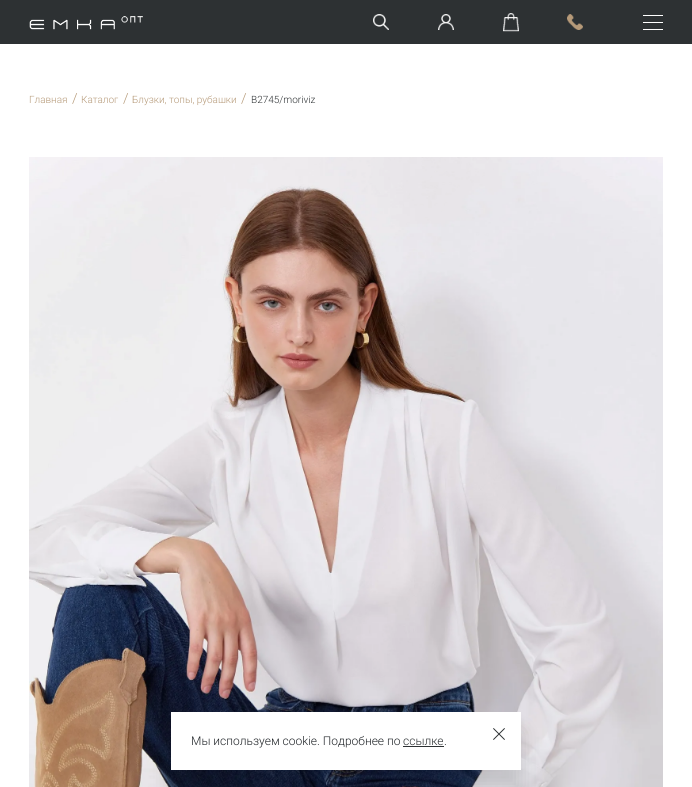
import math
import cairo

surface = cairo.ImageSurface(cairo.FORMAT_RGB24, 692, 787)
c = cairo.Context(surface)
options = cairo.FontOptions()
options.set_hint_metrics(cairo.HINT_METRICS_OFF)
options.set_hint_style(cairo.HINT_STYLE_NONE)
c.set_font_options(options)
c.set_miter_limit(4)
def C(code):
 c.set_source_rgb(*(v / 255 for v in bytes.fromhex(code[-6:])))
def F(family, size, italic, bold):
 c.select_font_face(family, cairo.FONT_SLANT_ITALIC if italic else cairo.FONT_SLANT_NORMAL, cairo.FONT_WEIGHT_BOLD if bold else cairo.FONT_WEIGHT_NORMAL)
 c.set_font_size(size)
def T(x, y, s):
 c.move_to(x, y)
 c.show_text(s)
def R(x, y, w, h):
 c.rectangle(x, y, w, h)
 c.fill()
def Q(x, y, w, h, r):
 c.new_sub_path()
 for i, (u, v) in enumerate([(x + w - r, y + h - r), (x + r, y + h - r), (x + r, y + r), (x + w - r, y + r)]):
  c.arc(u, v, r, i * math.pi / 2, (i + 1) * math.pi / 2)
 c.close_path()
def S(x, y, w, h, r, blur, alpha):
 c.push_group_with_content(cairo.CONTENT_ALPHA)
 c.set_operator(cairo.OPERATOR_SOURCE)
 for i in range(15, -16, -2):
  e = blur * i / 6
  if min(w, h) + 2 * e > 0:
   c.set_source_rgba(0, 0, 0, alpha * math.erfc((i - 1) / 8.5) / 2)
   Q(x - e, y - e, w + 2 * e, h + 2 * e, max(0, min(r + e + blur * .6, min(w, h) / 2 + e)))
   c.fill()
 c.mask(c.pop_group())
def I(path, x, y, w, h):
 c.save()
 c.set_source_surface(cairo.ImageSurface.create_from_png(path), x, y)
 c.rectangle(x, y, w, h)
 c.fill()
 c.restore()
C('ffffff')
c.paint()
C('2d3133')
R(0,0,692,44)
I('1.png',29,16,114,14)
I('2.png',373,14,16,16)
I('3.png',438,14,16,16)
I('4.png',503,13,16,19)
I('5.png',567,14,16,16)
C('ffffff')
R(643,15,20,1)
R(643,22,20,1)
R(643,29,20,1)
F('Roboto Light',10,0,0)
C('b69a79')
T(29,103,'Главная')
F('Roboto Light',14,0,0)
T(72,103,'/')
F('Roboto Light',10,0,0)
T(81,103,'Каталог')
F('Roboto Light',14,0,0)
T(123,103,'/')
F('Roboto Light',10,0,0)
T(132,103,'Блузки, топы, рубашки')
F('Roboto Light',14,0,0)
T(241,103,'/')
F('Roboto Light',10,0,0)
C('2d3133')
T(251,103,'B2745/moriviz')
I('6.png',29,157,634,630)
C('000000')
S(171,732,350,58,0,10,.16)
C('ffffff')
R(171,712,350,58)
F('Roboto Light',12,0,0)
C('212529')
T(191,745,'Мы используем cookie. Подробнее по')
C('2d3133')
T(403,745,'ссылке')
R(403,746,41,1)
C('212529')
T(444,745,'.')
I('7.png',493,728,12,12)
surface.write_to_png('o.png')
